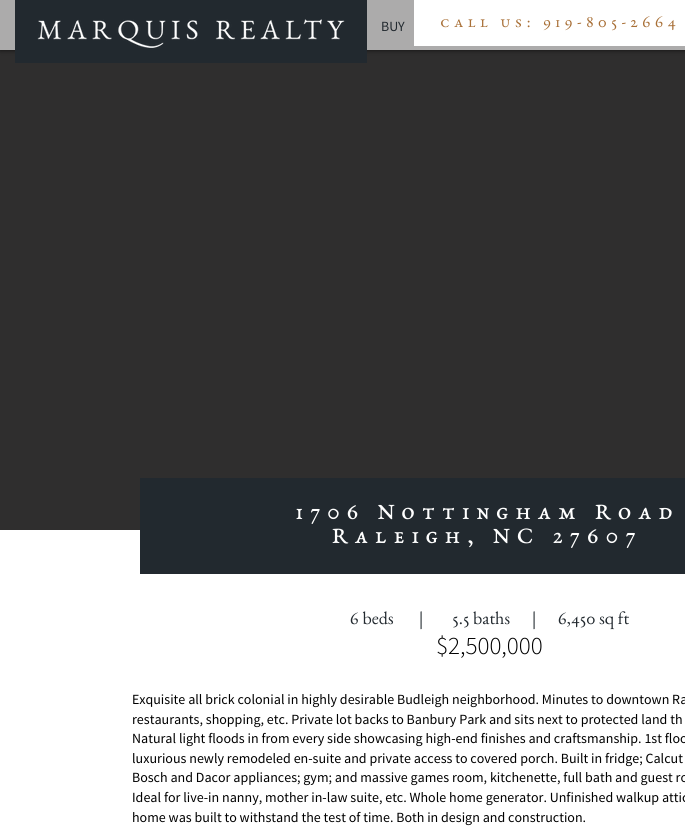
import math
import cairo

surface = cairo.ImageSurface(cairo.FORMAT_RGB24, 685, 839)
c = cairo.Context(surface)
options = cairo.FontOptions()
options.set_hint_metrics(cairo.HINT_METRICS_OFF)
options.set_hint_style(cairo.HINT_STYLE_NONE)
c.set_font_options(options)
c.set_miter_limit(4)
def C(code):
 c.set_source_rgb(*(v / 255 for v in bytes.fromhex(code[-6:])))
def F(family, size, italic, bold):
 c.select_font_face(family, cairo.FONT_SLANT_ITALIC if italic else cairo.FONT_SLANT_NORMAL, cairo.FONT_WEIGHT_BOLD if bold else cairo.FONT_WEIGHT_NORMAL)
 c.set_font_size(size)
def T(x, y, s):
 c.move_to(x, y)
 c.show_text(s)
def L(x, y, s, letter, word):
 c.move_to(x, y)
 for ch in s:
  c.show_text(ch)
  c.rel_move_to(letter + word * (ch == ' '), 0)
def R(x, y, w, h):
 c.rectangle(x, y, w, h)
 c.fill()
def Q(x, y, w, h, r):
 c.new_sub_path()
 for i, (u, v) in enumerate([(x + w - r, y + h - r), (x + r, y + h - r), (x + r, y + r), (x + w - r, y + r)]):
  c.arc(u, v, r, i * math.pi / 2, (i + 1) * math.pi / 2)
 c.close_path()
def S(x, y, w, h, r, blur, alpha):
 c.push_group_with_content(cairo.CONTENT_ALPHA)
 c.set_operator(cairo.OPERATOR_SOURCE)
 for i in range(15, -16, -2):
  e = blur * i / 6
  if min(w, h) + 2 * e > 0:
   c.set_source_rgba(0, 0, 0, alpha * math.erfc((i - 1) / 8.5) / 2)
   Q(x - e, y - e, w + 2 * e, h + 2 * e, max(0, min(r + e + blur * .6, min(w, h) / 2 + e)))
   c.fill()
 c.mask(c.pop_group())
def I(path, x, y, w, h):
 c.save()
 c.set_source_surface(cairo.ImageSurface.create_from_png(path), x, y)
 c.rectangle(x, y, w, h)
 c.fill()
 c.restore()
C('ffffff')
c.paint()
C('2f2e2e')
R(0,50,685,480)
C('000000')
S(0,0,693,50,0,2.5,.7)
C('acabab')
R(0,0,685,50)
C('22292f')
R(15,0,352,63)
I('1.png',37,19,308,29)
F('Source Sans Pro',14,0,0)
T(381,31,'BUY')
C('ffffff')
R(414,0,271,46)
F('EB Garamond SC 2',17,0,0)
C('a86f36')
L(440,27,'call us: 919-805-2664',4.4,0)
C('22292f')
R(140,478,545,96)
F('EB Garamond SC',24,0,0)
C('ffffff')
L(296,519,'1706 Nottingham Road',7.25,0)
L(332,543,'Raleigh, NC 27607',7.25,0)
F('EB Garamond',18,0,0)
C('22292f')
T(350,624,'6 beds       |        5.5 baths      |      6,450 sq ft')
F('Source Sans Pro Light',25,0,0)
C('000000')
T(436,654,'$2,500,000')
F('Source Sans Pro',14,0,0)
T(132,704,'Exquisite all brick colonial in highly desirable Budleigh neighborhood. Minutes to downtown Ra')
T(132,724,'restaurants, shopping, etc. Private lot backs to Banbury Park and sits next to protected land th')
T(132,743,'Natural light floods in from every side showcasing high-end finishes and craftsmanship. 1st floo')
T(132,763,'luxurious newly remodeled en-suite and private access to covered porch. Built in fridge; Calcut')
T(132,782,'Bosch and Dacor appliances; gym; and massive games room, kitchenette, full bath and guest ro')
T(132,802,'Ideal for live-in nanny, mother in-law suite, etc. Whole home generator. Unfinished walkup attic')
T(132,822,'home was built to withstand the test of time. Both in design and construction.')
surface.write_to_png('o.png')
